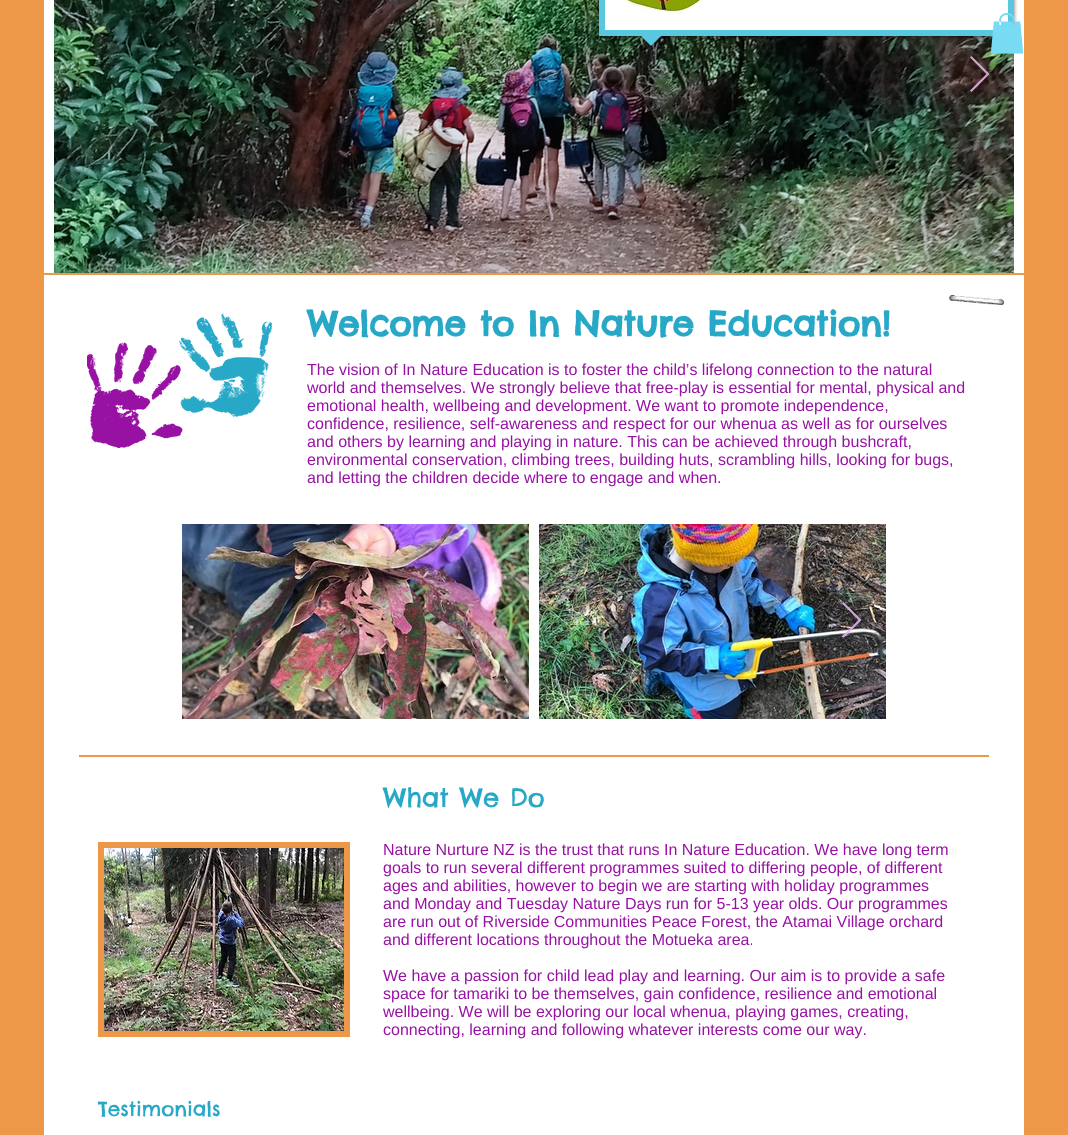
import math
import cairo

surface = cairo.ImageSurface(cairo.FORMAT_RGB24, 1068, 1135)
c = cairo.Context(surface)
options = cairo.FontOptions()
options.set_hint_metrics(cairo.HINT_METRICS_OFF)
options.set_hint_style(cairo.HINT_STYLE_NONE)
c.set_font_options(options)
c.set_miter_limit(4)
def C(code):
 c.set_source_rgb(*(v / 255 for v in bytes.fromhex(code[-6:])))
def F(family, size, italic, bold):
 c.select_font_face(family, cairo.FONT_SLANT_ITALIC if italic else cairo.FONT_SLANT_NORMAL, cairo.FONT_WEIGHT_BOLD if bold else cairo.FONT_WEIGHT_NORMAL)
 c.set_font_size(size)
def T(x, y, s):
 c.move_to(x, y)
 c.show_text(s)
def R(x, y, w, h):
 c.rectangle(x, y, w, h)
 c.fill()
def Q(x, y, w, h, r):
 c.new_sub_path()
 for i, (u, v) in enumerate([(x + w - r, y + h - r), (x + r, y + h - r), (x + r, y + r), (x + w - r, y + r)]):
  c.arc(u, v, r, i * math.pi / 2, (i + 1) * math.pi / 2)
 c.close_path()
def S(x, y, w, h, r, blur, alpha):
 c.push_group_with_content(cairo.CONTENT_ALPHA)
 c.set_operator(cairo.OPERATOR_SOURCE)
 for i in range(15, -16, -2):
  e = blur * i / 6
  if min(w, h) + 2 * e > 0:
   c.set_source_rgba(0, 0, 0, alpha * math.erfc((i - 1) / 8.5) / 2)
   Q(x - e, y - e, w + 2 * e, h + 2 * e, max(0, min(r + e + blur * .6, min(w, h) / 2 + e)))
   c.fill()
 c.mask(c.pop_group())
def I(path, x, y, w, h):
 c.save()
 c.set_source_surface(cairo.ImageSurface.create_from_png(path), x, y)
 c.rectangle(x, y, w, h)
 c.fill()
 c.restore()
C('ed9749')
c.paint()
C('ffffff')
R(44,0,980,273)
I('2.png',54,0,960,273)
C('000000')
S(599,-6,415,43,0,2,.6)
C('ffffff')
c.rectangle(602,-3,409,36)
c.fill_preserve()
C('59c7e0')
c.set_line_width(6)
c.stroke()
I('1.png',625,0,78,14)
c.new_path()
c.move_to(641,36)
c.line_to(661,36)
c.line_to(651,46)
c.close_path()
c.fill()
c.set_source_rgba(0.89,0.706,0.91,0.9)
c.new_path()
c.move_to(970,57.5)
c.line_to(971.5,56)
c.line_to(989.5,74)
c.line_to(971.5,92)
c.line_to(970,90.5)
c.line_to(986.5,74)
c.close_path()
c.fill()
I('3.png',990,13,34,41)
C('ffffff')
R(44,275,980,860)
I('4.png',949,295,55,10)
I('5.png',87,313,185,135)
F('Chelsea Market',34,0,1)
C('27a8c7')
T(307,336,'Welcome to In Nature Education!')
F('Liberation Sans',16,0,0)
C('9711a3')
T(307,375,'The vision of In Nature Education is to foster the child’s lifelong connection to the natural')
T(307,393,'world and themselves. We strongly believe that free-play is essential for mental, physical and')
T(307,411,'emotional health, wellbeing and development. We want to promote independence,')
T(307,429,'confidence, resilience, self-awareness and respect for our whenua as well as for ourselves')
T(307,447,'and others by learning and playing in nature. This can be achieved through bushcraft,')
T(307,465,'environmental conservation, climbing trees, building huts, scrambling hills, looking for bugs,')
T(307,483,'and letting the children decide where to engage and when.')
I('6.png',182,524,347,195)
I('7.png',539,524,347,195)
c.set_source_rgba(0.89,0.706,0.91,0.9)
c.new_path()
c.move_to(842,603.5)
c.line_to(843.5,602)
c.line_to(861.5,620)
c.line_to(843.5,638)
c.line_to(842,636.5)
c.line_to(858.5,620)
c.close_path()
c.fill()
C('ed9749')
R(79,755,910,2)
F('Chelsea Market',26,0,0)
C('27a8c7')
T(383,807,'What We Do')
C('ed9749')
R(98,842,252,195)
I('8.png',104,848,240,183)
F('Liberation Sans',16,0,0)
C('9711a3')
T(383,855,'Nature Nurture NZ is the trust that runs In Nature Education. We have long term')
T(383,873,'goals to run several different programmes suited to differing people, of different')
T(383,891,'ages and abilities, however to begin we are starting with holiday programmes')
T(383,909,'and Monday and Tuesday Nature Days run for 5-13 year olds. Our programmes')
T(383,927,'are run out of Riverside Communities Peace Forest, the Atamai Village orchard')
T(383,945,'and different locations throughout the Motueka area.')
T(383,981,'We have a passion for child lead play and learning. Our aim is to provide a safe')
T(383,999,'space for tamariki to be themselves, gain confidence, resilience and emotional')
T(383,1017,'wellbeing. We will be exploring our local whenua, playing games, creating,')
T(383,1035,'connecting, learning and following whatever interests come our way.')
F('Chelsea Market',20,0,0)
C('27a8c7')
T(98,1116,'Testimonials')
surface.write_to_png('o.png')
